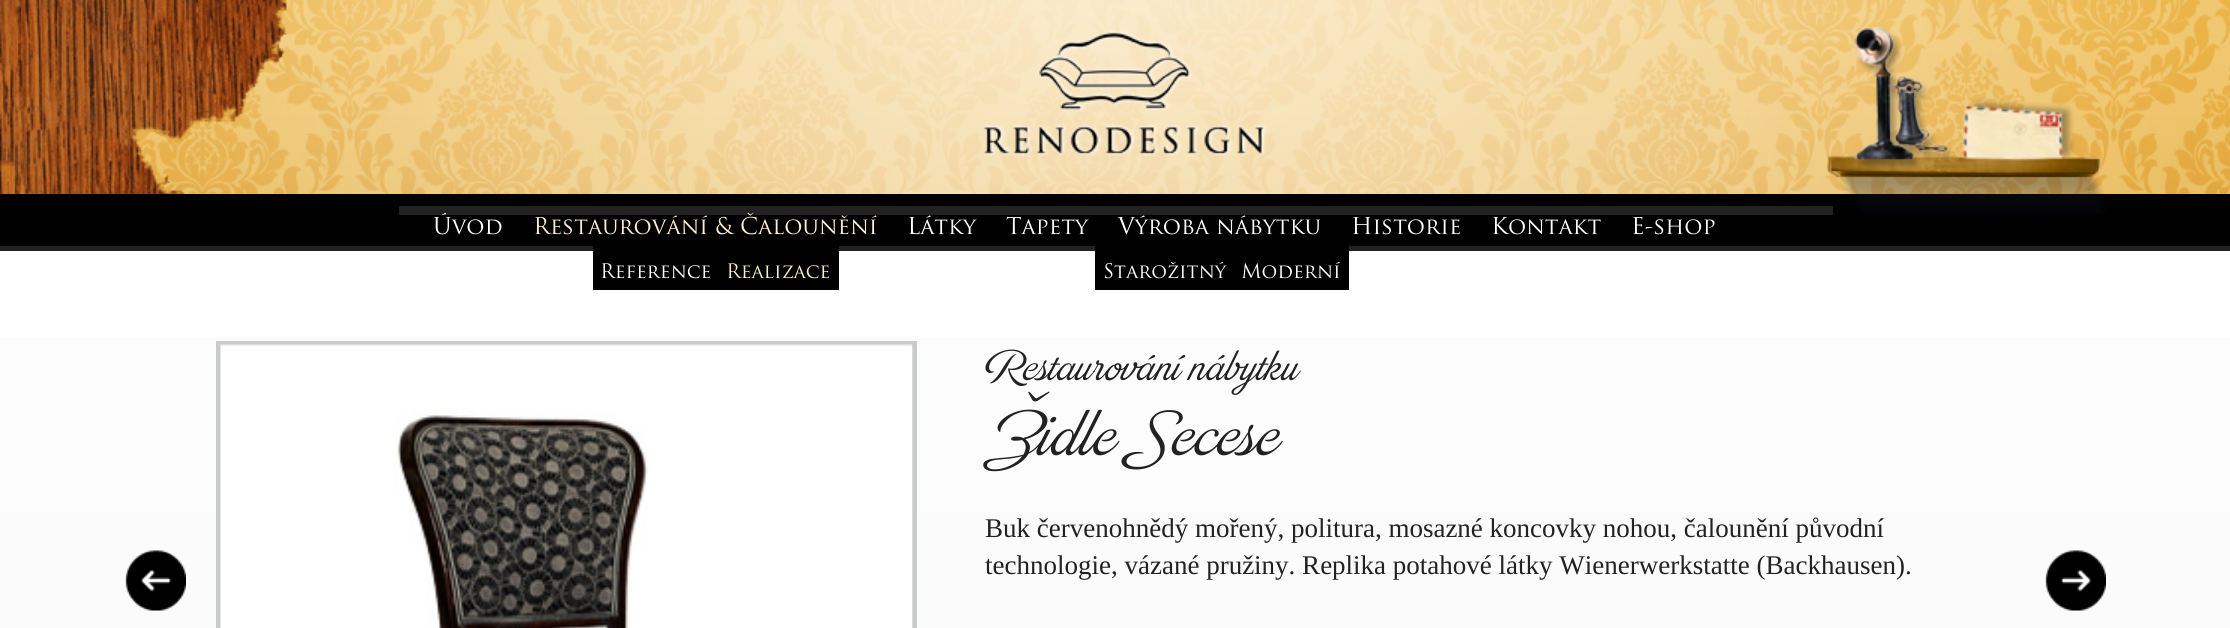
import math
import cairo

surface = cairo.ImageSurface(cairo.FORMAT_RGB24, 2230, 628)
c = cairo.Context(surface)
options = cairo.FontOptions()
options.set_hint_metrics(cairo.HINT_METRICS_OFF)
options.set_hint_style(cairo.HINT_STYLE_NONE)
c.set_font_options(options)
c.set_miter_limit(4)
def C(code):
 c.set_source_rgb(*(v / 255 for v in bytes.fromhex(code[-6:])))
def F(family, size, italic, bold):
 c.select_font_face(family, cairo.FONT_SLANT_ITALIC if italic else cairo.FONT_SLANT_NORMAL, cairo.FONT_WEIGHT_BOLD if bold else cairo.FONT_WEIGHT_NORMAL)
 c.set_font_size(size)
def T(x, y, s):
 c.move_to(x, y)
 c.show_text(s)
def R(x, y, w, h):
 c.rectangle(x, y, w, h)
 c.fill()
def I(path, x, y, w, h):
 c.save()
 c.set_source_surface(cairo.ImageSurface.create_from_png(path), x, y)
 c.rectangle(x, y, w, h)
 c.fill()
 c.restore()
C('ffffff')
c.paint()
I('1.png',136,0,2094,194)
I('3.png',0,0,2177,194)
C('000000')
R(0,194,2230,52)
I('2.png',1826,26,281,187)
C('222222')
R(0,246,2230,5)
I('4.png',983,30,284,126)
R(399,206,1434,9)
F('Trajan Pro',22.5,0,0)
C('ffffff')
T(433,234,'Úvod')
C('fff0cd')
T(533,234,'Restaurování & Čalounění')
C('000000')
R(593,246,246,44)
F('Trajan Pro',19.5,0,0)
C('ffffff')
T(600,278,'Reference')
C('fff0cd')
T(726,278,'Realizace')
F('Trajan Pro',22.5,0,0)
C('ffffff')
T(907,234,'Látky')
T(1006,234,'Tapety')
T(1118,234,'Výroba nábytku')
C('000000')
R(1095,246,254,44)
F('Trajan Pro',19.5,0,0)
C('ffffff')
T(1103,278,'Starožitný')
T(1241,278,'Moderní')
F('Trajan Pro',22.5,0,0)
T(1351,234,'Historie')
T(1491,234,'Kontakt')
T(1631,234,'E-shop')
gradient = cairo.LinearGradient(1115,250,1115,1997)
gradient.add_color_stop_rgba(0,0.992,0.992,0.992,1)
gradient.add_color_stop_rgba(.5,0.973,0.973,0.973,1)
gradient.add_color_stop_rgba(.78,0.922,0.925,0.925,1)
gradient.add_color_stop_rgba(1,0.922,0.925,0.925,1)
c.set_source(gradient)
R(0,337,2230,291)
I('5.png',125,550,61,61)
c.rectangle(218.5,343.5,696,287)
C('c9caca')
c.set_line_width(5)
c.stroke()
I('6.png',220,344,693,284)
F('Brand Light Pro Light',45,0,0)
C('222222')
T(985,380,'Restaurování nábytku')
F('Brand Light Pro Light',69,0,0)
T(985,455,'Židle Secese')
F('Liberation Serif',27,0,0)
T(985,537,'Buk červenohnědý mořený, politura, mosazné koncovky nohou, čalounění původní')
T(985,574,'technologie, vázané pružiny. Replika potahové látky Wienerwerkstatte (Backhausen).')
I('7.png',2045,550,61,61)
surface.write_to_png('o.png')
